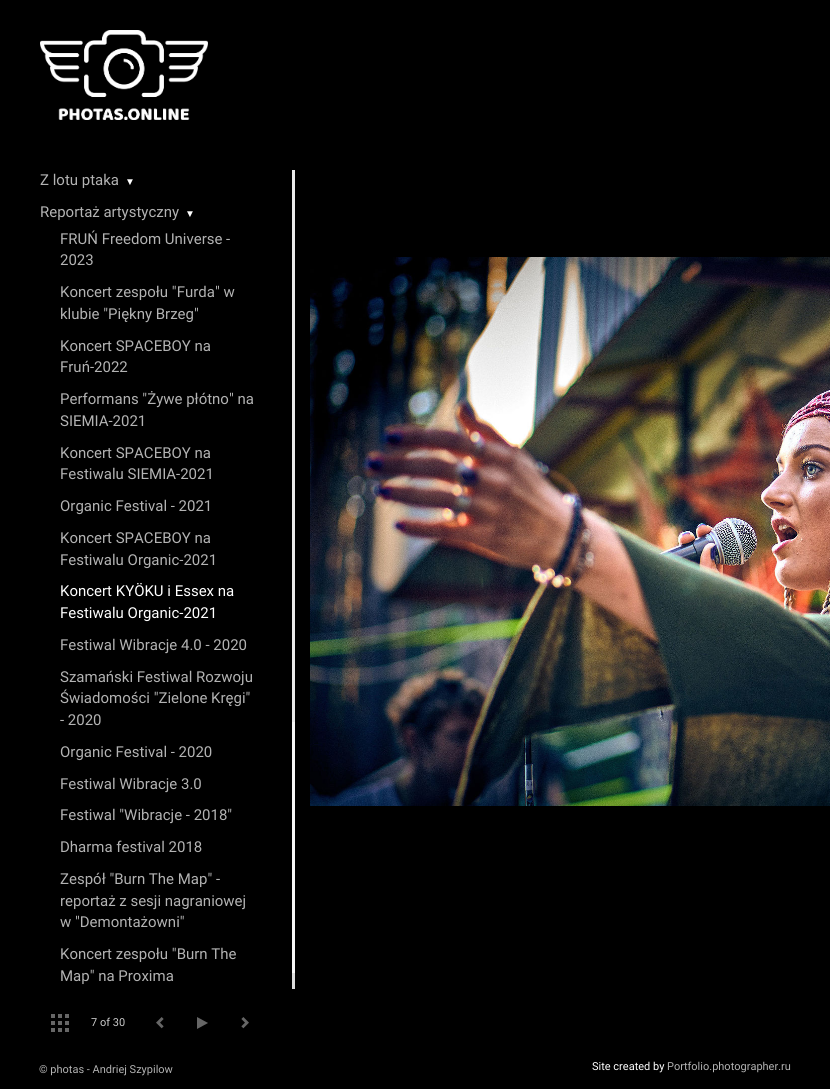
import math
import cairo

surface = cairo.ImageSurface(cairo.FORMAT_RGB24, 830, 1089)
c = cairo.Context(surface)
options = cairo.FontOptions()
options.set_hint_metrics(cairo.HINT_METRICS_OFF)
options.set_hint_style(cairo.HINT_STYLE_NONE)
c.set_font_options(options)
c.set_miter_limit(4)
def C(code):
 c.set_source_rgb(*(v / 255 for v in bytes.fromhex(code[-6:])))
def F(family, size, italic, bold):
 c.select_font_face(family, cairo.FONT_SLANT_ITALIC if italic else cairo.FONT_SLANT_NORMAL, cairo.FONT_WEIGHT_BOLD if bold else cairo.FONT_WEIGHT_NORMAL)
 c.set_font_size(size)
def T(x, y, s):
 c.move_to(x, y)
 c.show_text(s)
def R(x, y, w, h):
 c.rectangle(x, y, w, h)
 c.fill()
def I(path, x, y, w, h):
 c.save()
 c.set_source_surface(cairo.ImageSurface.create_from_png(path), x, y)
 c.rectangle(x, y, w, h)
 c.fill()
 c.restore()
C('000000')
c.paint()
I('1.png',40,30,168,90)
F('Roboto',15,0,0)
C('b3b3b3')
T(40,185,'Z lotu ptaka')
F('Liberation Serif',10,0,0)
C('ffffff')
T(125,185,'▼')
F('Roboto',15,0,0)
C('b3b3b3')
T(40,217,'Reportaż artystyczny')
F('Liberation Serif',10,0,0)
C('ffffff')
T(185,217,'▼')
F('Roboto',15,0,0)
C('b3b3b3')
T(60,244,'FRUŃ Freedom Universe -')
T(60,265,'2023')
T(60,297,'Koncert zespołu "Furda" w')
T(60,319,'klubie "Piękny Brzeg"')
T(60,351,'Koncert SPACEBOY na')
T(60,372,'Fruń-2022')
T(60,404,'Performans "Żywe płótno" na')
T(60,426,'SIEMIA-2021')
T(60,458,'Koncert SPACEBOY na')
T(60,479,'Festiwalu SIEMIA-2021')
T(60,511,'Organic Festival - 2021')
T(60,543,'Koncert SPACEBOY na')
T(60,565,'Festiwalu Organic-2021')
C('ffffff')
T(60,596,'Koncert KYÖKU i Essex na')
T(60,618,'Festiwalu Organic-2021')
C('b3b3b3')
T(60,650,'Festiwal Wibracje 4.0 - 2020')
T(60,682,'Szamański Festiwal Rozwoju')
T(60,703,'Świadomości "Zielone Kręgi"')
T(60,725,'- 2020')
T(60,757,'Organic Festival - 2020')
T(60,789,'Festiwal Wibracje 3.0')
T(60,820,'Festiwal "Wibracje - 2018"')
T(60,852,'Dharma festival 2018')
T(60,884,'Zespół "Burn The Map" -')
T(60,906,'reportaż z sesji nagraniowej')
T(60,927,'w "Demontażowni"')
T(60,959,'Koncert zespołu "Burn The')
T(60,981,'Map" na Proxima')
C('ebebeb')
R(292,170,3,552)
C('f8f8f8')
R(292,722,3,251)
C('dddddd')
R(292,973,3,16)
I('2.png',51,1014,18,18)
F('Roboto',11,0,0)
C('cccccc')
T(91,1026,'7 of 30')
I('3.png',156,1017,8,12)
C('666666')
c.new_path()
c.move_to(208,1023)
c.line_to(197,1029)
c.line_to(197,1017)
c.close_path()
c.fill()
I('4.png',241,1017,8,12)
I('5.png',310,257,520,549)
C('b3b3b3')
T(39,1073,'© photas - Andriej Szypilow')
C('ffffff')
T(592,1070,'Site created by')
C('b3b3b3')
T(667,1070,'Portfolio.photographer.ru')
surface.write_to_png('o.png')
